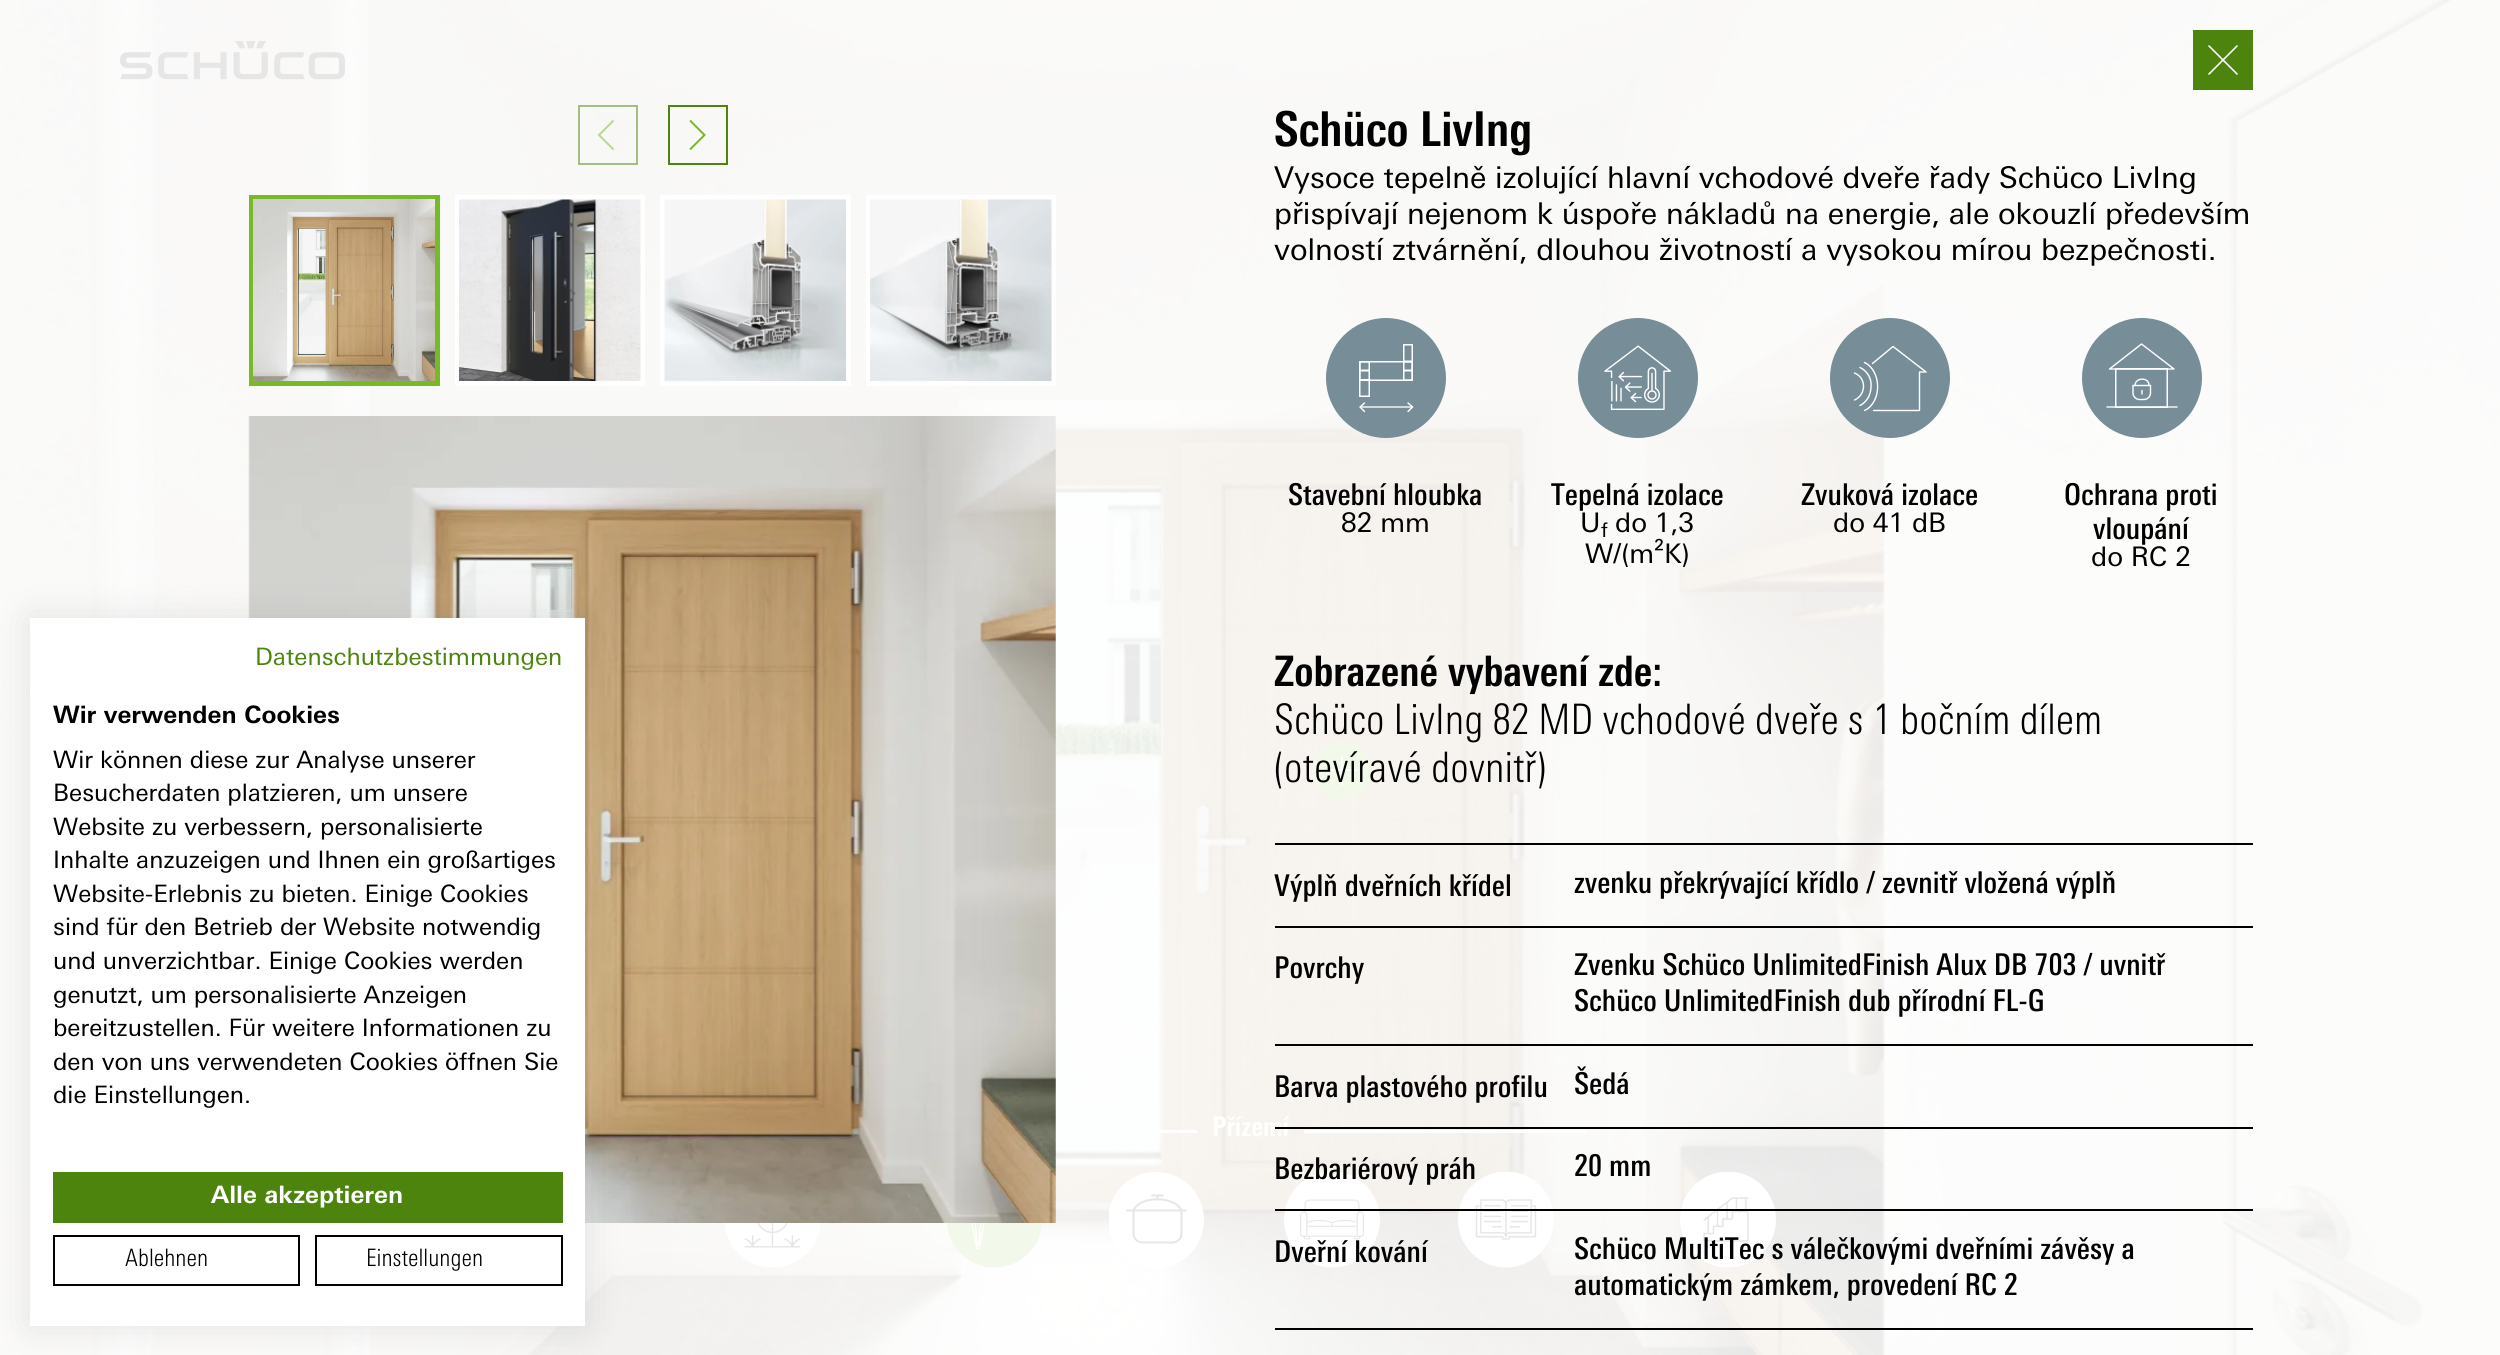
import math
import cairo

surface = cairo.ImageSurface(cairo.FORMAT_RGB24, 2500, 1355)
c = cairo.Context(surface)
options = cairo.FontOptions()
options.set_hint_metrics(cairo.HINT_METRICS_OFF)
options.set_hint_style(cairo.HINT_STYLE_NONE)
c.set_font_options(options)
c.set_miter_limit(4)
def C(code):
 c.set_source_rgb(*(v / 255 for v in bytes.fromhex(code[-6:])))
def F(family, size, italic, bold):
 c.select_font_face(family, cairo.FONT_SLANT_ITALIC if italic else cairo.FONT_SLANT_NORMAL, cairo.FONT_WEIGHT_BOLD if bold else cairo.FONT_WEIGHT_NORMAL)
 c.set_font_size(size)
def T(x, y, s):
 c.move_to(x, y)
 c.show_text(s)
def R(x, y, w, h):
 c.rectangle(x, y, w, h)
 c.fill()
def Q(x, y, w, h, r):
 c.new_sub_path()
 for i, (u, v) in enumerate([(x + w - r, y + h - r), (x + r, y + h - r), (x + r, y + r), (x + w - r, y + r)]):
  c.arc(u, v, r, i * math.pi / 2, (i + 1) * math.pi / 2)
 c.close_path()
def S(x, y, w, h, r, blur, alpha):
 c.push_group_with_content(cairo.CONTENT_ALPHA)
 c.set_operator(cairo.OPERATOR_SOURCE)
 for i in range(15, -16, -2):
  e = blur * i / 6
  if min(w, h) + 2 * e > 0:
   c.set_source_rgba(0, 0, 0, alpha * math.erfc((i - 1) / 8.5) / 2)
   Q(x - e, y - e, w + 2 * e, h + 2 * e, max(0, min(r + e + blur * .6, min(w, h) / 2 + e)))
   c.fill()
 c.mask(c.pop_group())
def I(path, x, y, w, h):
 c.save()
 c.set_source_surface(cairo.ImageSurface.create_from_png(path), x, y)
 c.rectangle(x, y, w, h)
 c.fill()
 c.restore()
C('ffffff')
c.paint()
I('2.png',0,0,2500,1355)
I('12.png',248,416,808,807)
C('000000')
S(30,618,555,708,0,18,.1)
C('ffffff')
R(30,618,555,708)
F('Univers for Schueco',24,0,0)
C('4c840d')
T(255,665,'Datenschutzbestimmungen')
F('Univers for Schueco',24,0,1)
C('000000')
T(53,723,'Wir verwenden Cookies')
F('Univers for Schueco',24,0,0)
T(53,768,'Wir können diese zur Analyse unserer')
T(53,801,'Besucherdaten platzieren, um unsere')
T(53,835,'Website zu verbessern, personalisierte')
T(53,868,'Inhalte anzuzeigen und Ihnen ein großartiges')
T(53,902,'Website-Erlebnis zu bieten. Einige Cookies')
T(53,935,'sind für den Betrieb der Website notwendig')
T(53,969,'und unverzichtbar. Einige Cookies werden')
T(53,1003,'genutzt, um personalisierte Anzeigen')
T(53,1036,'bereitzustellen. Für weitere Informationen zu')
T(53,1070,'den von uns verwendeten Cookies öffnen Sie')
T(53,1103,'die Einstellungen.')
C('4c840d')
R(53,1172,510,51)
F('Univers for Schueco',24,0,1)
C('ffffff')
T(211,1203,'Alle akzeptieren')
c.rectangle(54,1236,245,49)
C('000000')
c.stroke()
F('Univers for Schueco Light',24,0,0)
T(125,1266,'Ablehnen')
c.rectangle(316,1236,246,49)
c.stroke()
T(366,1266,'Einstellungen')
I('1.png',120,41,225,39)
C('f2f8ea')
c.arc(1341.5,769.5,28.5,0,2 * math.pi)
c.fill()
c.arc(1342,770,29,0,2 * math.pi)
c.fill()
C('ffffff')
R(1328,769,29,2)
R(1341,756,2,29)
R(1159,1130,38,3)
F('Univers for Schueco SemiBold',27,0,0)
T(1212,1136,'Přízemí')
R(1304,1130,283,3)
I('3.png',947,1223,96,45)
c.save()
c.rectangle(1109,1172,96,96)
c.clip()
c.arc(1156,1220,48,0,2 * math.pi)
c.fill()
c.restore()
c.new_path()
c.move_to(1133.5,1210.5)
c.line_to(1181.5,1210.5)
c.line_to(1181.5,1233.5)
c.curve_to(1181.5,1238.5,1177.5,1242.5,1172.5,1242.5)
c.line_to(1142.5,1242.5)
c.curve_to(1137.5,1242.5,1133.5,1238.5,1133.5,1233.5)
c.close_path()
c.move_to(1126.5,1210.5)
c.line_to(1186.5,1210.5)
c.move_to(1133.5,1210.5)
c.curve_to(1139.5,1195.5,1175,1195.5,1181.5,1210.5)
c.move_to(1157.5,1196)
c.line_to(1157.5,1200)
c.move_to(1163.5,1195.5)
c.line_to(1151.5,1195.5)
C('e6e6e6')
c.stroke()
I('4.png',1284,1172,96,96)
I('5.png',1458,1172,96,96)
I('6.png',725,1223,96,45)
I('7.png',1680,1172,96,96)
C('4c840d')
R(2193,30,60,60)
c.new_path()
c.move_to(2209,74)
c.line_to(2237,46)
c.move_to(2209,46)
c.line_to(2237,74)
C('ffffff')
c.set_line_width(1.6)
c.set_line_cap(cairo.LINE_CAP_ROUND)
c.stroke()
c.rectangle(579,106,58,58)
C('a2be82')
c.set_line_width(2)
c.set_line_cap(cairo.LINE_CAP_BUTT)
c.stroke()
c.new_path()
c.move_to(613.5,120.5)
c.line_to(599,135)
c.line_to(613.5,149.5)
C('b8d88f')
c.stroke()
c.rectangle(669,106,58,58)
C('4c840d')
c.stroke()
c.new_path()
c.move_to(690,149.5)
c.line_to(704.5,135)
c.line_to(690,120.5)
C('78b928')
c.stroke()
c.rectangle(251.5,197.5,186,186)
c.set_line_width(5)
c.stroke()
I('8.png',253,199,182,182)
C('ffffff')
R(455,195,190,191)
I('9.png',459,199,182,182)
R(660,195,191,191)
I('10.png',664,199,182,182)
R(866,195,190,191)
I('11.png',870,199,182,182)
F('Univers for Schueco SemiBold',48,0,0)
C('000000')
T(1274,146,'Schüco LivIng')
F('Univers for Schueco',30,0,0)
T(1274,188,'Vysoce tepelně izolující hlavní vchodové dveře řady Schüco LivIng')
T(1274,224,'přispívají nejenom k úspoře nákladů na energie, ale okouzlí především')
T(1274,260,'volností ztvárnění, dlouhou životností a vysokou mírou bezpečnosti.')
C('778d98')
c.new_path()
c.arc(1386,378,60,0,2 * math.pi)
c.fill()
c.rectangle(1359.75,361.75,52.5,18.5)
C('ffffff')
c.set_line_width(1.5)
c.stroke()
c.rectangle(1403.75,370.75,8.5,9.5)
c.stroke()
c.rectangle(1403.75,361.75,8.5,8.5)
c.stroke()
c.rectangle(1403.75,344.75,8.5,16.5)
c.stroke()
c.rectangle(1359.75,379.75,9.5,16.5)
c.stroke()
c.rectangle(1359.75,370.75,9.5,9.5)
c.stroke()
c.rectangle(1359.75,361.75,9.5,8.5)
c.stroke()
c.new_path()
c.move_to(1364.5,403)
c.line_to(1360,407)
c.line_to(1364.5,411.5)
c.set_line_width(1.4)
c.set_line_cap(cairo.LINE_CAP_ROUND)
c.set_line_join(cairo.LINE_JOIN_ROUND)
c.stroke()
c.new_path()
c.move_to(1360.5,407)
c.line_to(1412.5,407)
c.set_line_join(cairo.LINE_JOIN_MITER)
c.stroke()
c.new_path()
c.move_to(1408,403)
c.line_to(1412.5,407)
c.line_to(1408,411.5)
c.set_line_join(cairo.LINE_JOIN_ROUND)
c.stroke()
F('Univers for Schueco Medium',30,0,0)
C('000000')
T(1288,505,'Stavební hloubka')
F('Univers for Schueco',27,0,0)
T(1341,532,'82 mm')
I('13.png',1578,318,120,120)
F('Univers for Schueco Medium',30,0,0)
T(1551,505,'Tepelná izolace')
F('Univers for Schueco',27,0,0)
T(1580,532,'U')
F('Univers for Schueco',20,0,0)
T(1601,537,'f')
F('Univers for Schueco',27,0,0)
T(1615,532,'do 1,3')
T(1585,563,'W/(m²K)')
C('778d98')
c.new_path()
c.arc(1890,378,60,0,2 * math.pi)
c.fill()
c.new_path()
c.move_to(1854.5,373)
c.curve_to(1867,378,1866,395,1854.5,400)
c.move_to(1860,367.5)
c.curve_to(1867.5,371,1872,379,1871,387)
c.curve_to(1870.5,401,1860,405.5,1860,405.5)
c.move_to(1864.5,362.5)
c.curve_to(1882,371,1882,402.5,1864.5,410.5)
C('ffffff')
c.stroke()
c.new_path()
c.move_to(1872.5,363.5)
c.line_to(1893,346.5)
c.line_to(1926,372)
c.line_to(1919.5,372)
c.line_to(1919.5,410.5)
c.line_to(1873.5,410.5)
c.stroke()
F('Univers for Schueco Medium',30,0,0)
C('000000')
T(1801,505,'Zvuková izolace')
F('Univers for Schueco',27,0,0)
T(1833,532,'do 41 dB')
C('778d98')
c.new_path()
c.arc(2142,378,60,0,2 * math.pi)
c.fill()
c.new_path()
c.move_to(2142,390.5)
c.line_to(2142,394)
C('ffffff')
c.set_line_join(cairo.LINE_JOIN_MITER)
c.stroke()
c.new_path()
c.move_to(2133,385.5)
c.line_to(2150.5,385.5)
c.line_to(2150.5,393)
c.curve_to(2150.5,396.5,2147.5,399.5,2144,399.5)
c.line_to(2139.5,399.5)
c.curve_to(2136,399.5,2133,396.5,2133,393)
c.close_path()
c.move_to(2135,385.5)
c.curve_to(2135,377,2149.5,377,2149,385.5)
c.set_line_cap(cairo.LINE_CAP_BUTT)
c.stroke()
c.rectangle(2115.75,368.75,51.5,38.5)
c.set_line_width(1.5)
c.stroke()
c.new_path()
c.move_to(2141.5,344)
c.line_to(2174,369)
c.line_to(2109.5,369)
c.close_path()
c.set_line_width(1.4)
c.set_line_cap(cairo.LINE_CAP_ROUND)
c.set_line_join(cairo.LINE_JOIN_ROUND)
c.stroke()
c.new_path()
c.move_to(2107,407)
c.line_to(2177,407)
c.set_line_join(cairo.LINE_JOIN_MITER)
c.stroke()
F('Univers for Schueco Medium',30,0,0)
C('000000')
T(2064,505,'Ochrana proti')
T(2093,539,'vloupání')
F('Univers for Schueco',27,0,0)
T(2091,566,'do RC 2')
F('Univers for Schueco SemiBold',42,0,0)
T(1274,686,'Zobrazené vybavení zde:')
F('Univers for Schueco Light',42,0,0)
T(1274,734,'Schüco LivIng 82 MD vchodové dveře s 1 bočním dílem')
T(1274,782,'(otevíravé dovnitř)')
R(1275,843,978,2)
F('Univers for Schueco Medium',30,0,0)
T(1274,896,'Výplň dveřních křídel')
T(1574,893,'zvenku překrývající křídlo / zevnitř vložená výplň')
R(1275,926,978,2)
T(1274,978,'Povrchy')
T(1574,975,'Zvenku Schüco UnlimitedFinish Alux DB 703 / uvnitř')
T(1574,1011,'Schüco UnlimitedFinish dub přírodní FL-G')
R(1275,1044,978,2)
T(1274,1097,'Barva plastového profilu')
T(1574,1094,'Šedá')
R(1275,1127,978,2)
T(1274,1179,'Bezbariérový práh')
T(1574,1176,'20 mm')
R(1275,1209,978,2)
T(1274,1262,'Dveřní kování')
T(1574,1259,'Schüco MultiTec s válečkovými dveřními závěsy a')
T(1574,1295,'automatickým zámkem, provedení RC 2')
R(1275,1328,978,2)
surface.write_to_png('o.png')
